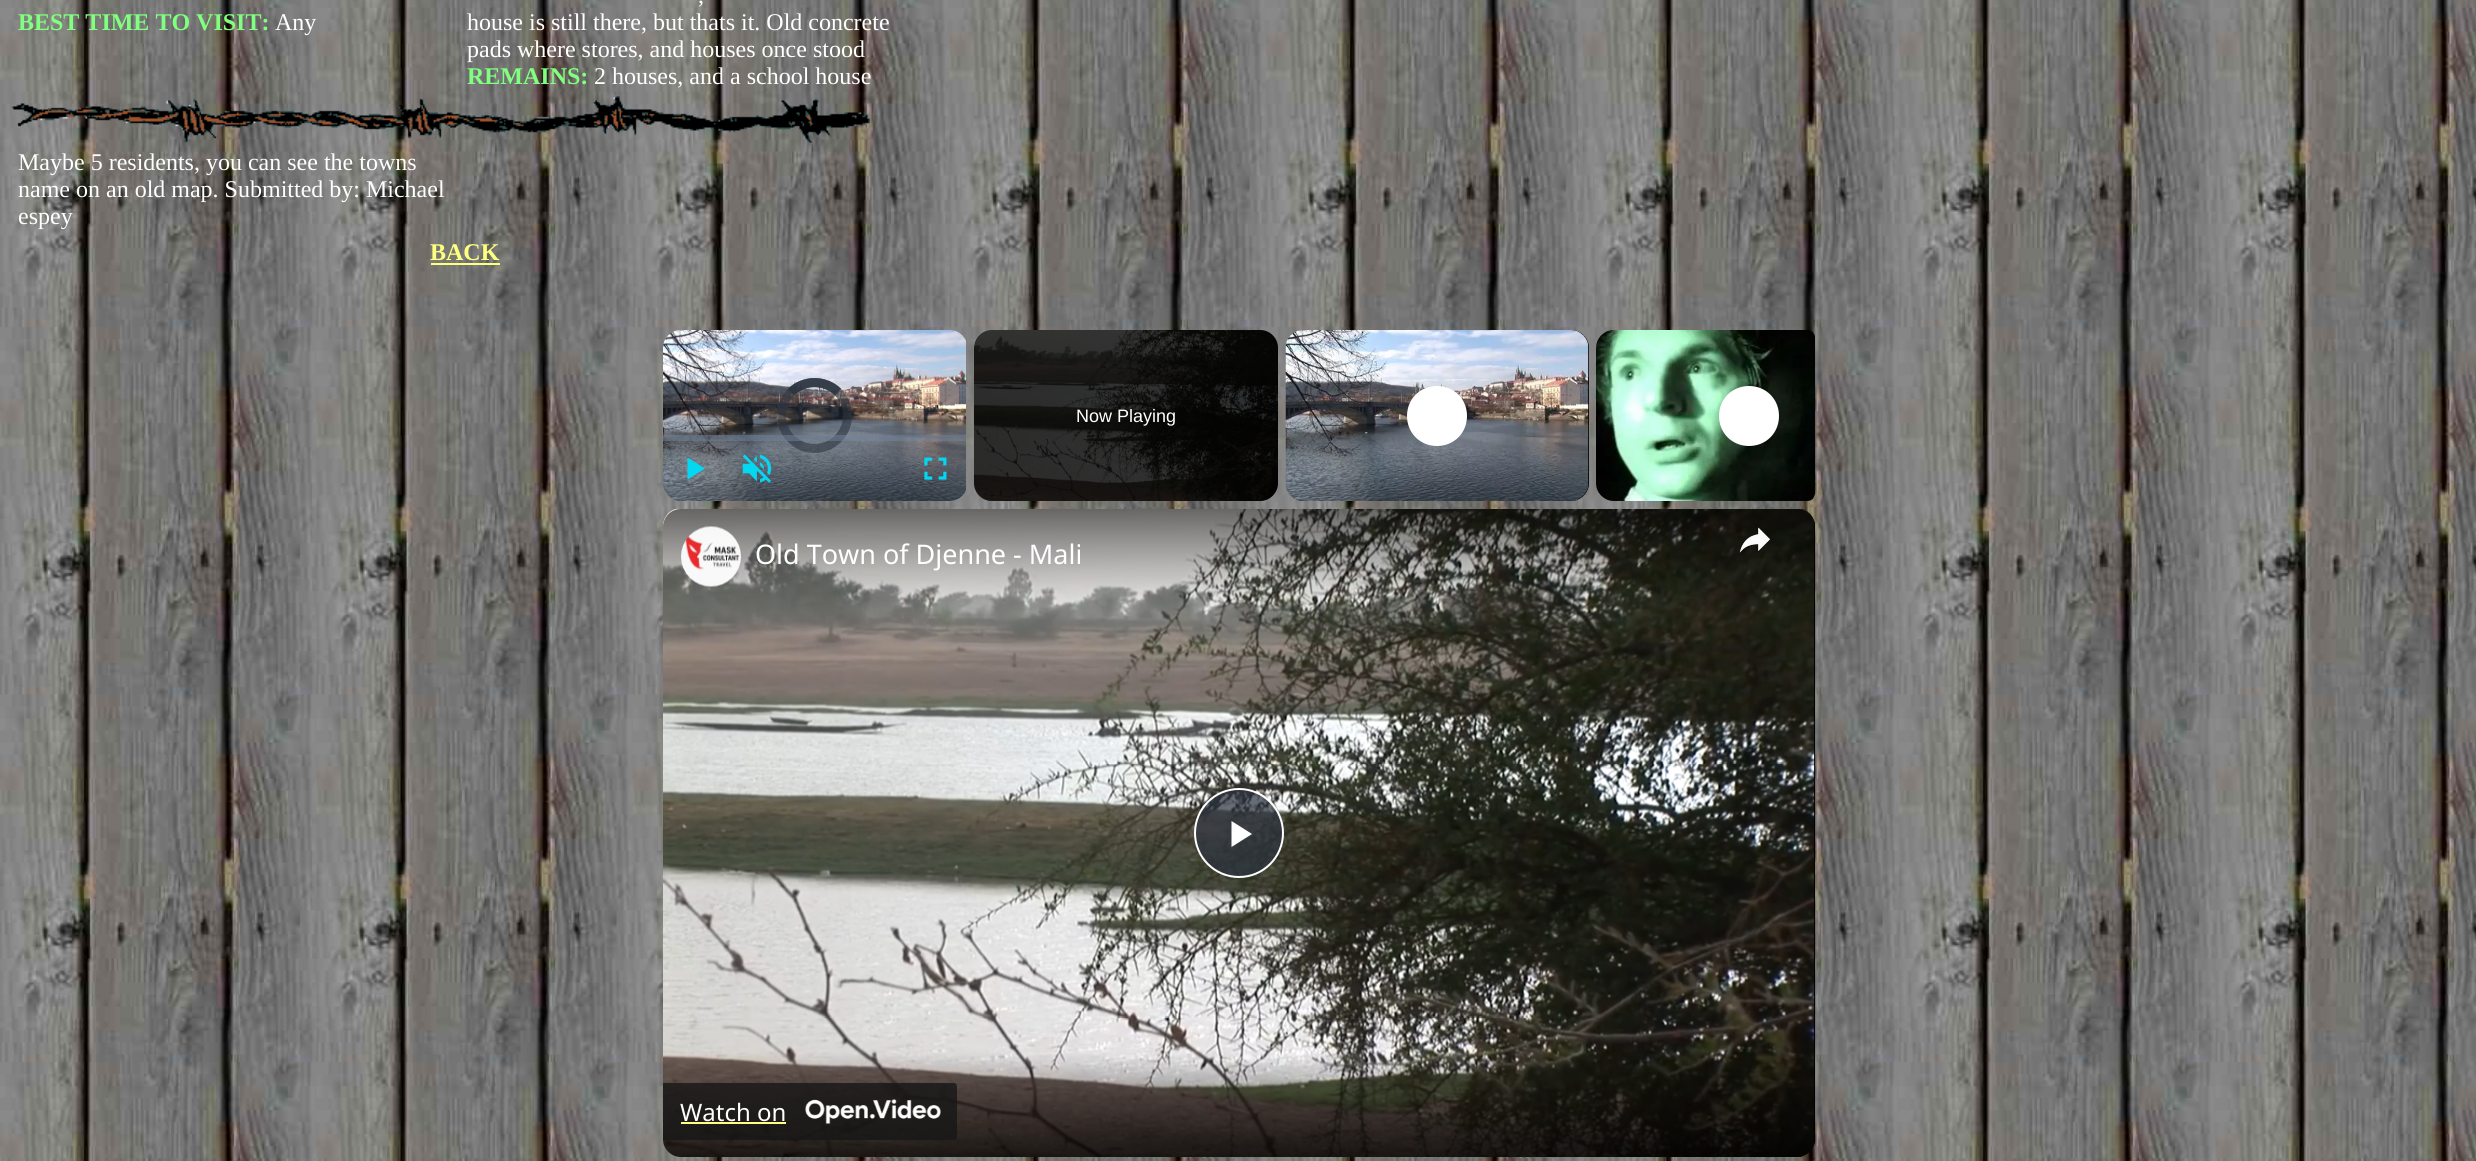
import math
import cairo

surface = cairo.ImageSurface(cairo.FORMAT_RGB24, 2476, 1161)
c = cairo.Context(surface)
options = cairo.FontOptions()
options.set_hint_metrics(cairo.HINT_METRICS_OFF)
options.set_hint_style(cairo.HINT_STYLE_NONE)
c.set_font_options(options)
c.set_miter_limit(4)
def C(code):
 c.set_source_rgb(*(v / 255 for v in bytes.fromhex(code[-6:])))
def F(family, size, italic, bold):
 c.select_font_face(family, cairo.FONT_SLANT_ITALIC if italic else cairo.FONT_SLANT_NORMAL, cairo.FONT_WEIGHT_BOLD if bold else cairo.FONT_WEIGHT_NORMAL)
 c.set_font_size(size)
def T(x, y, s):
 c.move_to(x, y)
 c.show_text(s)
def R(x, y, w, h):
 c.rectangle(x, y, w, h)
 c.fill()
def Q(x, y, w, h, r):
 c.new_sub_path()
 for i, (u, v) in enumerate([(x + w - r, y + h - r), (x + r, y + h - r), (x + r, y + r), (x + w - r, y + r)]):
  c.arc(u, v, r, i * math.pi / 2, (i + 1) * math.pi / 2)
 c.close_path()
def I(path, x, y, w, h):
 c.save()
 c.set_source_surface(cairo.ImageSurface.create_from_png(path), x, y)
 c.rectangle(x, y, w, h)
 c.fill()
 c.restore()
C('ffffff')
c.paint()
I('1.png',0,0,2476,1161)
F('Liberation Serif',24,0,1)
C('80ff80')
T(18,30,'BEST TIME TO VISIT:')
F('Liberation Serif',24,0,0)
C('ffffff')
T(275,30,'Any')
T(698,3,',')
T(467,30,'house is still there, but thats it. Old concrete')
T(467,57,'pads where stores, and houses once stood')
F('Liberation Serif',24,0,1)
C('80ff80')
T(467,84,'REMAINS:')
F('Liberation Serif',24,0,0)
C('ffffff')
T(594,84,'2 houses, and a school house')
I('2.png',12,96,858,47)
T(18,170,'Maybe 5 residents, you can see the towns')
T(18,197,'name on an old map. Submitted by: Michael')
T(18,224,'espey')
F('Liberation Serif',24,0,1)
C('ffff80')
T(430,260,'BACK')
R(431,263,69,2)
I('3.png',663,330,303,171)
c.arc(814.5,415.5,33,0,2 * math.pi)
c.set_source_rgba(0.169,0.2,0.247,0.59)
c.set_line_width(9)
c.stroke()
c.new_path()
c.move_to(791,392)
c.curve_to(804,379.5,825,379.5,838,392)
c.stroke()
c.new_path()
c.move_to(791,392)
c.curve_to(804,379.5,825,379.5,838,392)
c.stroke()
c.set_source_rgba(0.451,0.522,0.624,0.5)
R(663,435,303,6)
C('03d8f3')
c.new_path()
c.move_to(687.5,457.5)
c.line_to(687.5,479.5)
c.line_to(705,468.5)
c.close_path()
c.fill()
I('4.png',742,454,30,29)
I('5.png',924,457,23,23)
C('000000')
Q(974,330,304,171,18)
c.fill()
I('6.png',974,330,304,171)
F('Liberation Sans',18,0,0)
C('ffffff')
T(1076,422,'Now Playing')
C('000000')
Q(1286,330,303,171,18)
c.fill()
I('7.png',1285,330,304,171)
C('ffffff')
c.new_path()
c.move_to(1437,386)
c.curve_to(1420,386,1407,399,1407,416)
c.curve_to(1407,433,1420,446,1437,446)
c.curve_to(1454,446,1467,433,1467,416)
c.curve_to(1467,399,1454,386,1437,386)
c.close_path()
c.fill()
I('8.png',1596,330,219,171)
c.new_path()
c.move_to(1749,386)
c.curve_to(1732,386,1719,399,1719,416)
c.curve_to(1719,433,1732,446,1749,446)
c.curve_to(1766,446,1779,433,1779,416)
c.curve_to(1779,399,1766,386,1749,386)
c.close_path()
c.fill()
I('9.png',663,509,1152,648)
I('10.png',663,509,1152,648)
c.set_source_rgba(0.169,0.2,0.247,0.7)
c.arc(1239,833,44,0,2 * math.pi)
c.fill_preserve()
C('ffffff')
c.set_line_width(2)
c.stroke()
c.new_path()
c.move_to(1231.5,821)
c.line_to(1231.5,847)
c.line_to(1252,834)
c.close_path()
c.fill()
gradient = cairo.LinearGradient(1239,508,1239,1157)
gradient.add_color_stop_rgba(0,0,0,0,.6)
gradient.add_color_stop_rgba(.16,0,0,0,0)
gradient.add_color_stop_rgba(.84,0,0,0,0)
gradient.add_color_stop_rgba(1,0,0,0,.8)
c.set_source(gradient)
Q(663,509,1152,648,18)
c.fill()
I('11.png',681,526,60,61)
I('12.png',1740,527,30,26)
F('Noto Sans',27,0,0)
C('ffffff')
T(755,564,'Old Town of Djenne - Mali')
c.set_source_rgba(0.09,0.09,0.09,0.8)
c.new_path()
c.move_to(663,1083)
c.line_to(954,1083)
c.curve_to(955.5,1083,957,1084.5,957,1086)
c.line_to(957,1137)
c.curve_to(957,1138.5,955.5,1140,954,1140)
c.line_to(663,1140)
c.close_path()
c.fill()
F('Noto Sans',24,0,0)
C('ffffff')
T(680,1121,'Watch on')
C('ffff80')
R(681,1122,105,2)
I('13.png',805,1099,136,25)
surface.write_to_png('o.png')
